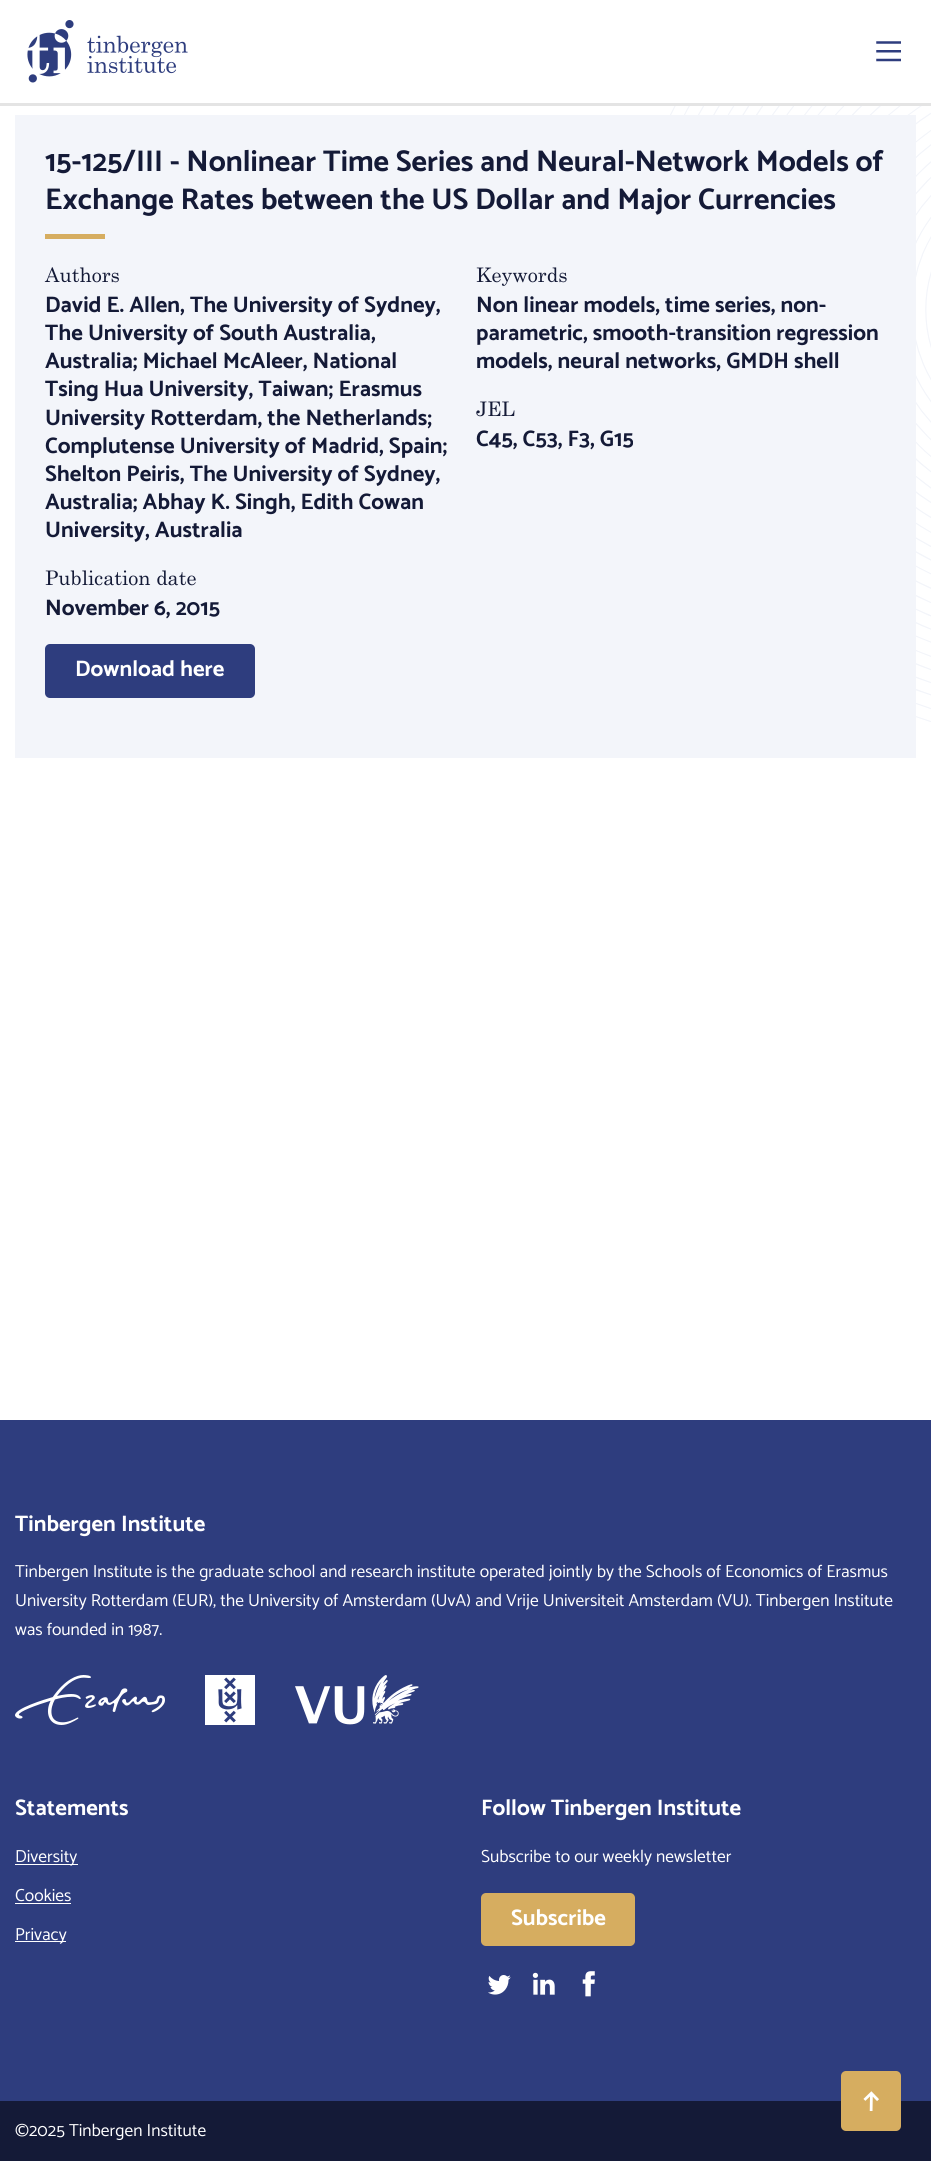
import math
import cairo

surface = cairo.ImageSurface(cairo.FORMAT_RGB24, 931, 2161)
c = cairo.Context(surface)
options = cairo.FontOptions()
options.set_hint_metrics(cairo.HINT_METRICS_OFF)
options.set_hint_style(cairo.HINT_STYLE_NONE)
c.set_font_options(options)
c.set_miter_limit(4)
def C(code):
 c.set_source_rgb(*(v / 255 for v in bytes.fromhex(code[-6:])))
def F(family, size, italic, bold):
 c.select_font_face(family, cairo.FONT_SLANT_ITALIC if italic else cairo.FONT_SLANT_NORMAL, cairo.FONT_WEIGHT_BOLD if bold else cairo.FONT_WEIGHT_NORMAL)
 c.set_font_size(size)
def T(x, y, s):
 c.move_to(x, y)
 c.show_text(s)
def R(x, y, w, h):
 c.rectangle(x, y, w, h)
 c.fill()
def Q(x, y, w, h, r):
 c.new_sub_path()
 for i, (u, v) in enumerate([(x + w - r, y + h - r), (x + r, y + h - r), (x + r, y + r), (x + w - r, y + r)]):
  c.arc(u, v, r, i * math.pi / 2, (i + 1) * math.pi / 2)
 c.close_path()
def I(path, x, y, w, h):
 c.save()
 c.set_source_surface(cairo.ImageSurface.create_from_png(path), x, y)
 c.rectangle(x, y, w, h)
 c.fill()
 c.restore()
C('ffffff')
c.paint()
I('1.png',669,106,262,616)
C('e4e4e4')
R(0,103,931,3)
I('2.png',27,20,161,63)
I('3.png',876,41,25,21)
C('f3f5fa')
R(15,115,901,643)
F('Catamaran',30,0,1)
C('141a37')
T(45,171,'15-125/III - Nonlinear Time Series and Neural-Network Models of')
T(45,209,'Exchange Rates between the US Dollar and Major Currencies')
C('d6ad60')
R(45,234,60,5)
F('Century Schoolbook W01',20,0,0)
C('141a37')
T(45,282,'Authors')
F('Catamaran',22.5,0,1)
T(45,312,'David E. Allen, The University of Sydney,')
T(45,340,'The University of South Australia,')
T(45,368,'Australia; Michael McAleer, National')
T(45,396,'Tsing Hua University, Taiwan; Erasmus')
T(45,425,'University Rotterdam, the Netherlands;')
T(45,453,'Complutense University of Madrid, Spain;')
T(45,481,'Shelton Peiris, The University of Sydney,')
T(45,509,'Australia; Abhay K. Singh, Edith Cowan')
T(45,537,'University, Australia')
F('Century Schoolbook W01',20,0,0)
T(45,585,'Publication date')
F('Catamaran',22.5,0,1)
T(45,615,'November 6, 2015')
F('Century Schoolbook W01',20,0,0)
T(476,282,'Keywords')
F('Catamaran',22.5,0,1)
T(476,312,'Non linear models, time series, non-')
T(476,340,'parametric, smooth-transition regression')
T(476,368,'models, neural networks, GMDH shell')
F('Century Schoolbook W01',20,0,0)
T(476,416,'JEL')
F('Catamaran',22.5,0,1)
T(476,446,'C45, C53, F3, G15')
C('2e3d7e')
Q(45,644,210,54,5)
c.fill()
C('ffffff')
T(75,676,'Download here')
C('2e3d7e')
R(0,1420,931,681)
C('ffffff')
T(15,1531,'Tinbergen Institute')
F('Catamaran',17.5,0,0)
T(15,1577,'Tinbergen Institute is the graduate school and research institute operated jointly by the Schools of Economics of Erasmus')
T(15,1606,'University Rotterdam (EUR), the University of Amsterdam (UvA) and Vrije Universiteit Amsterdam (VU). Tinbergen Institute')
T(15,1635,'was founded in 1987.')
I('4.png',15,1675,150,50)
I('5.png',205,1675,50,50)
I('6.png',295,1675,124,50)
F('Catamaran',22.5,0,1)
T(15,1815,'Statements')
R(15,1864,63,1)
F('Catamaran',17.5,0,0)
T(15,1862,'Diversity')
T(15,1901,'Cookies')
R(15,1903,56,1)
R(15,1941,51,1)
T(15,1940,'Privacy')
F('Catamaran',22.5,0,1)
T(481,1815,'Follow Tinbergen Institute')
F('Catamaran',17.5,0,0)
T(481,1862,'Subscribe to our weekly newsletter')
C('d6ad60')
Q(481,1893,154,53,5)
c.fill()
F('Catamaran',22.5,0,1)
C('ffffff')
T(511,1925,'Subscribe')
I('7.png',488,1975,23,20)
I('8.png',532,1972,23,23)
I('9.png',582,1971,13,26)
C('141a37')
R(0,2101,931,60)
F('Catamaran',17.5,0,0)
C('ffffff')
T(15,2136,'©2025 Tinbergen Institute')
C('d6ad60')
Q(841,2071,60,60,5)
c.fill()
I('10.png',863,2091,16,20)
surface.write_to_png('o.png')
